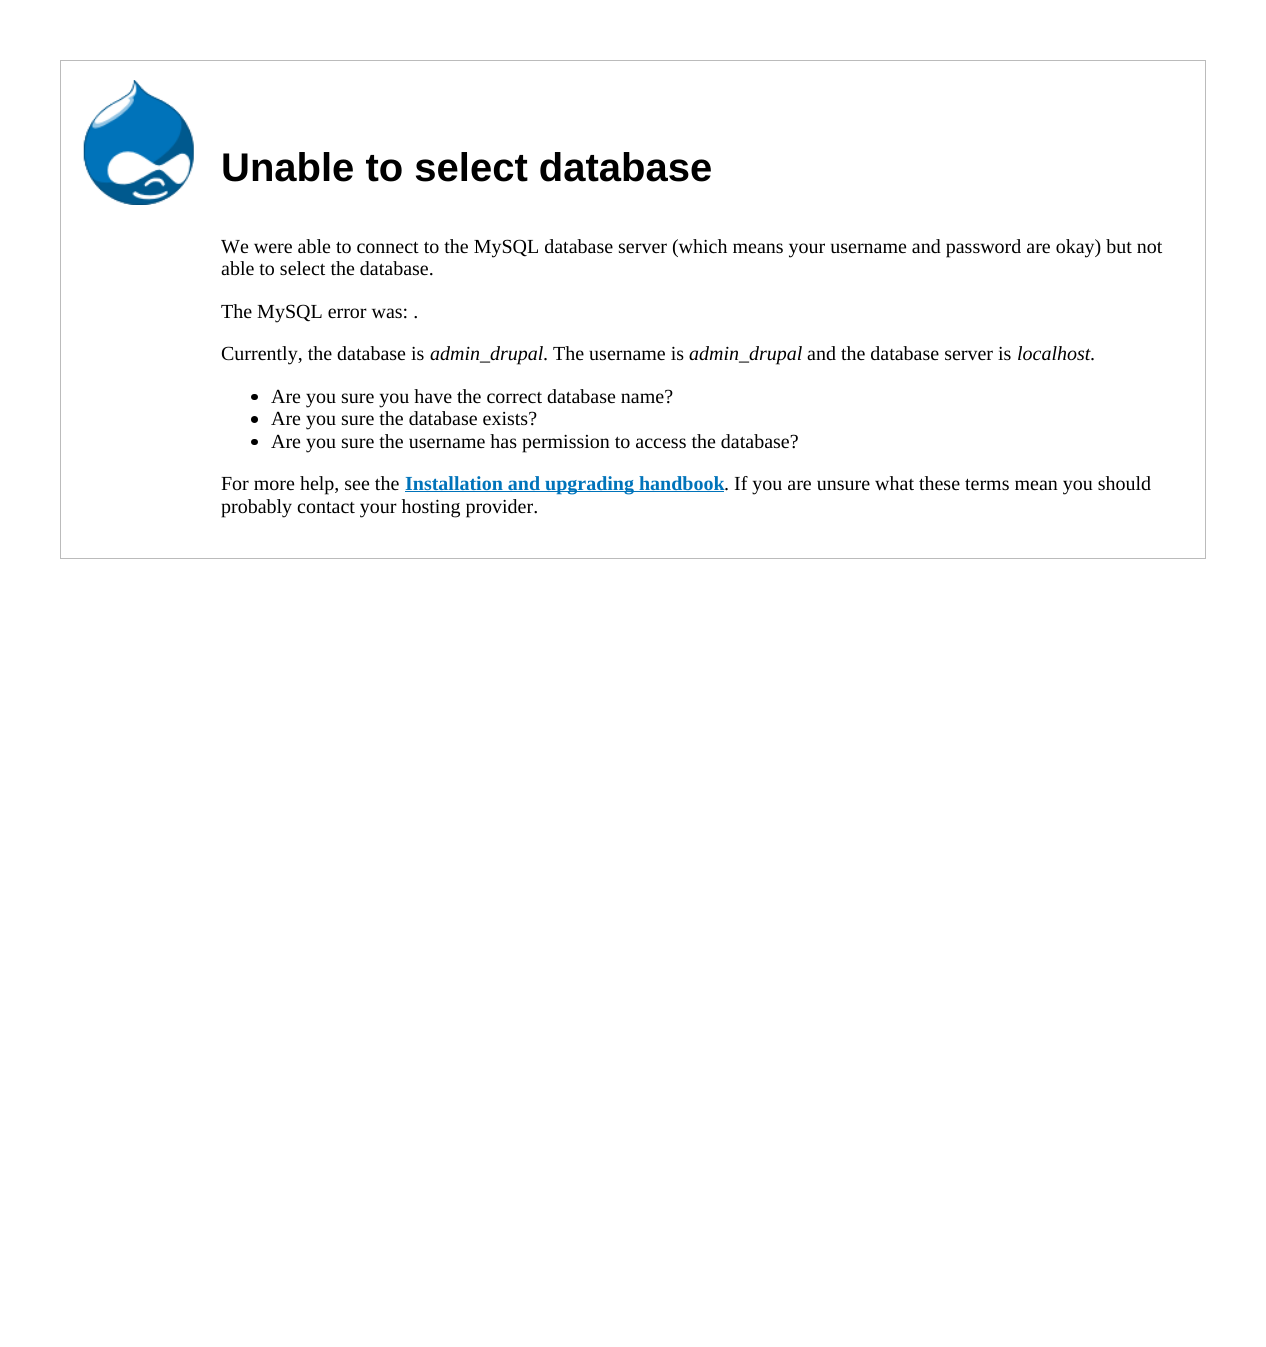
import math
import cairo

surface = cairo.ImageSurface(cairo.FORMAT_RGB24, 1266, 1347)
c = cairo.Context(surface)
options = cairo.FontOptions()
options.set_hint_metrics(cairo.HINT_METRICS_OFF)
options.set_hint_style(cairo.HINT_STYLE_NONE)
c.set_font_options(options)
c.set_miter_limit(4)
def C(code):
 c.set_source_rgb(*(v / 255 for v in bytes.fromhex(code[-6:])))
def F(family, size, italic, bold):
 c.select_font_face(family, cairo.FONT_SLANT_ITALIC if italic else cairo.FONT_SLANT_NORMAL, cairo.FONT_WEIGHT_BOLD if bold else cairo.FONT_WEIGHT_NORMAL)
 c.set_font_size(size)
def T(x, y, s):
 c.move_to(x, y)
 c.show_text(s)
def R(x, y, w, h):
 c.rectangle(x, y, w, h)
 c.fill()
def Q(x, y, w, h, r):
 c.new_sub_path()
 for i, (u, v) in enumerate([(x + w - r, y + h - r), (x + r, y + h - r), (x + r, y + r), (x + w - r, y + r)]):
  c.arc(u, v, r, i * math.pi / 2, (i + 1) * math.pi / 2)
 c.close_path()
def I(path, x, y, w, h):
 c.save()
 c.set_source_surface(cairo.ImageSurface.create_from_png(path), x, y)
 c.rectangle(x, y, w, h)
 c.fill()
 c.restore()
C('ffffff')
c.paint()
I('1.png',83,80,111,125)
c.rectangle(60.5,60.5,1145,498)
C('bbbbbb')
c.set_line_width(1)
c.stroke()
F('Liberation Sans',40,0,1)
C('000000')
T(221,181,'Unable to select database')
F('Liberation Serif',20,0,0)
T(221,253,'We were able to connect to the MySQL database server (which means your username and password are okay) but not')
T(221,275,'able to select the database.')
T(221,318,'The MySQL error was: .')
T(221,360,'Currently, the database is')
F('Liberation Serif',20,1,0)
T(430,360,'admin_drupal')
F('Liberation Serif',20,0,0)
T(543,360,'. The username is')
F('Liberation Serif',20,1,0)
T(689,360,'admin_drupal')
F('Liberation Serif',20,0,0)
T(807,360,'and the database server is')
F('Liberation Serif',20,1,0)
T(1017,360,'localhost')
F('Liberation Serif',20,0,0)
T(1090,360,'.')
Q(251,394,7,6,3)
c.fill()
T(271,403,'Are you sure you have the correct database name?')
c.new_path()
c.arc(254.5,419.5,3.5,0,2 * math.pi)
c.fill()
T(271,425,'Are you sure the database exists?')
Q(251,439,7,6,3)
c.fill()
T(271,448,'Are you sure the username has permission to access the database?')
T(221,490,'For more help, see the')
C('0073ba')
R(405,491,319,1)
F('Liberation Serif',20,0,1)
T(405,490,'Installation and upgrading handbook')
F('Liberation Serif',20,0,0)
C('000000')
T(724,490,'. If you are unsure what these terms mean you should')
T(221,513,'probably contact your hosting provider.')
surface.write_to_png('o.png')
